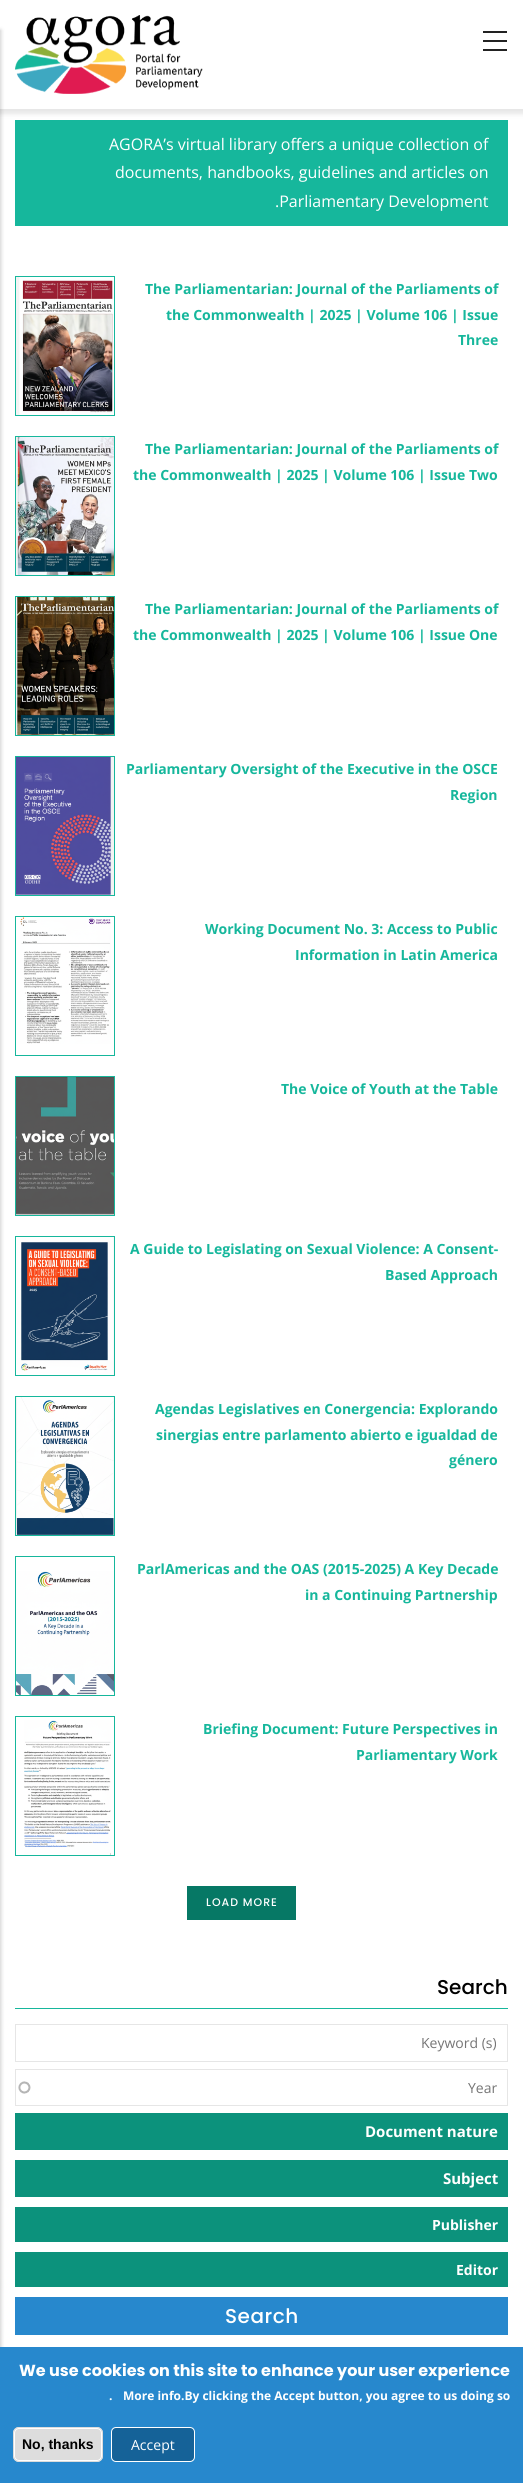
import math
import cairo

surface = cairo.ImageSurface(cairo.FORMAT_RGB24, 523, 2483)
c = cairo.Context(surface)
options = cairo.FontOptions()
options.set_hint_metrics(cairo.HINT_METRICS_OFF)
options.set_hint_style(cairo.HINT_STYLE_NONE)
c.set_font_options(options)
c.set_miter_limit(4)
def C(code):
 c.set_source_rgb(*(v / 255 for v in bytes.fromhex(code[-6:])))
def F(family, size, italic, bold):
 c.select_font_face(family, cairo.FONT_SLANT_ITALIC if italic else cairo.FONT_SLANT_NORMAL, cairo.FONT_WEIGHT_BOLD if bold else cairo.FONT_WEIGHT_NORMAL)
 c.set_font_size(size)
def T(x, y, s):
 c.move_to(x, y)
 c.show_text(s)
def L(x, y, s, letter, word):
 c.move_to(x, y)
 for ch in s:
  c.show_text(ch)
  c.rel_move_to(letter + word * (ch == ' '), 0)
def R(x, y, w, h):
 c.rectangle(x, y, w, h)
 c.fill()
def Q(x, y, w, h, r):
 c.new_sub_path()
 for i, (u, v) in enumerate([(x + w - r, y + h - r), (x + r, y + h - r), (x + r, y + r), (x + w - r, y + r)]):
  c.arc(u, v, r, i * math.pi / 2, (i + 1) * math.pi / 2)
 c.close_path()
def S(x, y, w, h, r, blur, alpha):
 c.push_group_with_content(cairo.CONTENT_ALPHA)
 c.set_operator(cairo.OPERATOR_SOURCE)
 for i in range(15, -16, -2):
  e = blur * i / 6
  if min(w, h) + 2 * e > 0:
   c.set_source_rgba(0, 0, 0, alpha * math.erfc((i - 1) / 8.5) / 2)
   Q(x - e, y - e, w + 2 * e, h + 2 * e, max(0, min(r + e + blur * .6, min(w, h) / 2 + e)))
   c.fill()
 c.mask(c.pop_group())
def I(path, x, y, w, h):
 c.save()
 c.set_source_surface(cairo.ImageSurface.create_from_png(path), x, y)
 c.rectangle(x, y, w, h)
 c.fill()
 c.restore()
C('ffffff')
c.paint()
C('16b79c')
R(15,120,493,106)
C('000000')
S(-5,-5,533,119,0,2.5,.1)
C('ffffff')
R(0,0,523,109)
I('1.png',15,15,188,79)
C('000000')
S(-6,30,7,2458,0,2,.2)
C('222222')
R(483,31,24,2)
R(483,40,24,2)
R(483,49,24,2)
F('Open Sans',16,0,0)
C('ffffff')
T(109,150,'AGORA’s virtual library offers a unique collection of')
T(115,178,'documents, handbooks, guidelines and articles on')
T(275,207,'.Parliamentary Development')
c.rectangle(15.5,276.5,99,139)
C('16b79c')
c.set_line_width(1)
c.stroke()
I('2.png',16,277,97,138)
F('Open Sans',14,0,1)
T(145,294,'The Parliamentarian: Journal of the Parliaments of')
T(166,320,'the Commonwealth | 2025 | Volume 106 | Issue')
T(458,345,'Three')
c.rectangle(15.5,436.5,99,139)
c.stroke()
I('3.png',16,437,98,138)
T(145,454,'The Parliamentarian: Journal of the Parliaments of')
T(133,480,'the Commonwealth | 2025 | Volume 106 | Issue Two')
c.rectangle(15.5,596.5,99,139)
c.stroke()
I('4.png',16,597,98,138)
T(145,614,'The Parliamentarian: Journal of the Parliaments of')
T(133,640,'the Commonwealth | 2025 | Volume 106 | Issue One')
c.rectangle(15.5,756.5,99,139)
c.stroke()
I('5.png',16,757,98,138)
T(126,774,'Parliamentary Oversight of the Executive in the OSCE')
T(450,800,'Region')
c.rectangle(15.5,916.5,99,139)
c.stroke()
I('6.png',20,917,91,127)
T(205,934,'Working Document No. 3: Access to Public')
T(295,960,'Information in Latin America')
c.rectangle(15.5,1076.5,99,139)
c.stroke()
I('7.png',16,1077,98,138)
T(281,1094,'The Voice of Youth at the Table')
c.rectangle(15.5,1236.5,99,139)
c.stroke()
I('8.png',17,1237,97,138)
T(130,1254,'A Guide to Legislating on Sexual Violence: A Consent-')
T(385,1280,'Based Approach')
c.rectangle(15.5,1396.5,99,139)
c.stroke()
I('9.png',16,1397,98,138)
T(155,1414,'Agendas Legislatives en Conergencia: Explorando')
T(156,1440,'sinergias entre parlamento abierto e igualdad de')
T(449,1465,'género')
c.rectangle(15.5,1556.5,99,139)
c.stroke()
I('10.png',16,1571,98,124)
T(137,1574,'ParlAmericas and the OAS (2015-2025) A Key Decade')
T(305,1600,'in a Continuing Partnership')
c.rectangle(15.5,1716.5,99,139)
c.stroke()
I('11.png',24,1720,87,135)
T(203,1734,'Briefing Document: Future Perspectives in')
T(356,1760,'Parliamentary Work')
C('067865')
R(187,1886,109,34)
F('Poppins Medium',11,0,0)
C('ffffff')
L(206,1906,'LOAD MORE',1,0)
F('Poppins Medium',20,0,0)
C('000000')
T(437,1994,'Search')
C('16b79c')
R(15,2008,493,1)
c.rectangle(15.5,2024.5,492,37)
C('e6e6e6')
c.stroke()
F('Open Sans',14,0,0)
C('757575')
T(421,2048,'Keyword (s)')
I('12.png',18,2081,13,13)
c.rectangle(15.5,2069.5,492,36)
C('e6e6e6')
c.stroke()
C('757575')
T(468,2093,'Year')
C('0c927c')
R(15,2113,493,37)
F('Open Sans',15,0,1)
C('ffffff')
T(365,2137,'Document nature')
C('0c927c')
R(15,2160,493,37)
C('ffffff')
T(443,2184,'Subject')
C('0c927c')
R(15,2207,493,35)
F('Open Sans',14,0,1)
C('ffffff')
T(432,2230,'Publisher')
C('0c927c')
R(15,2252,493,35)
C('ffffff')
T(456,2275,'Editor')
C('2788cd')
R(15,2297,493,38)
F('Poppins Medium',20,0,0)
C('ffffff')
L(225,2323,'Search',.5,0)
C('2788cd')
R(0,2347,523,136)
F('Poppins',16,0,1)
C('ffffff')
T(19,2376,'We use cookies on this site to enhance your user experience')
F('Open Sans',12,0,1)
T(109,2400,'.')
T(123,2400,'More info')
T(181,2400,'.By clicking the Accept button, you agree to us doing so')
C('dddddd')
Q(13,2427,90,35,6)
c.fill()
Q(14.5,2428.5,87,32,4.5)
C('ffffff')
c.stroke()
Q(13.5,2427.5,89,34,5.5)
C('dcdcdc')
c.stroke()
F('Liberation Sans',14,0,1)
C('000000')
T(22,2449,'No, thanks')
C('156298')
Q(111.5,2427.5,83,34,4.5)
c.fill_preserve()
C('ffffff')
c.stroke()
F('Open Sans',14,0,0)
T(131,2450,'Accept')
surface.write_to_png('o.png')
